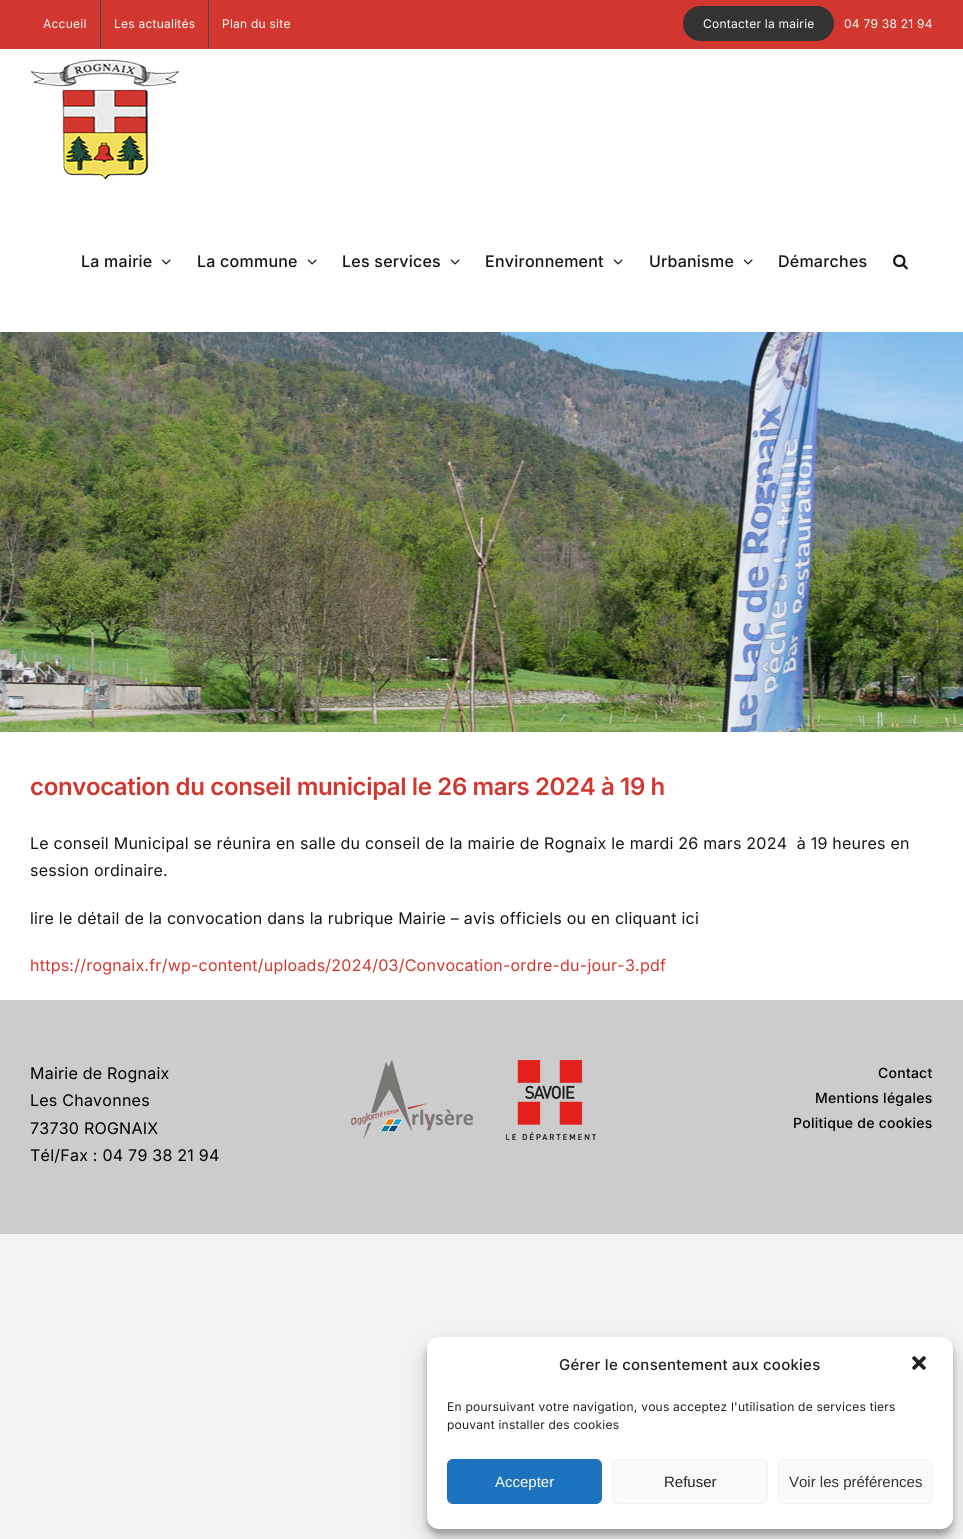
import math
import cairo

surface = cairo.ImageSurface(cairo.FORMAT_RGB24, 963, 1539)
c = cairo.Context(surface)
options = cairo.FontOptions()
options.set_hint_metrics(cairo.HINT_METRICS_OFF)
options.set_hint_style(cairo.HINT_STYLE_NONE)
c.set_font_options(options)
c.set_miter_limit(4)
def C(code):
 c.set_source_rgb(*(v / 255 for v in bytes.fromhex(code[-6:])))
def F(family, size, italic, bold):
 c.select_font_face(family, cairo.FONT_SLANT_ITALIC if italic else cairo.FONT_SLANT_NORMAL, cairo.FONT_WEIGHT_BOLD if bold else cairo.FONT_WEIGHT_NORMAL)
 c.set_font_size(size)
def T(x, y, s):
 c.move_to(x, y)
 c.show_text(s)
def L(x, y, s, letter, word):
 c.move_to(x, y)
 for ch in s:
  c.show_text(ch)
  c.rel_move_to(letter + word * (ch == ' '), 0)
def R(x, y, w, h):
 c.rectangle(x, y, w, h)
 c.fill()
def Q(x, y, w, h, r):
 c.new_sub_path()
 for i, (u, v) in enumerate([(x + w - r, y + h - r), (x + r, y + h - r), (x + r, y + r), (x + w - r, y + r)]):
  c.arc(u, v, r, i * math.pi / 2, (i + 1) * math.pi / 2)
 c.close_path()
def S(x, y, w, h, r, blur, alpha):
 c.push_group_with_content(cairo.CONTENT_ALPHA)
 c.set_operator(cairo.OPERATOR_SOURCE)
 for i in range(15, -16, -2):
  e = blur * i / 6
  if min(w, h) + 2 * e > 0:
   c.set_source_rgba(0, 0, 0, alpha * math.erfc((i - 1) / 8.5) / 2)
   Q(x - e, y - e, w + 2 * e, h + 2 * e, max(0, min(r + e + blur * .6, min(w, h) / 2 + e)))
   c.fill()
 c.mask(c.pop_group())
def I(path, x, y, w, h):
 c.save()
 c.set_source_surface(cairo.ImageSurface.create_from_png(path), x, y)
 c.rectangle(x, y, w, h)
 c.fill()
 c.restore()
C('f2f3f5')
c.paint()
C('ffffff')
R(0,49,963,951)
C('d1372e')
R(0,0,963,49)
F('Inter',12,0,0)
C('ffffff')
L(43,28,'Accueil',.24,0)
C('434549')
R(100,0,1,48)
C('ffffff')
L(114,28,'Les actualités',.24,0)
C('434549')
R(208,0,1,48)
C('ffffff')
L(222,28,'Plan du site',.24,0)
C('333333')
Q(683,6,151,35,17.5)
c.fill()
C('ffffff')
L(703,28,'Contacter la mairie',.24,0)
L(844,28,'04 79 38 21 94',.24,0)
I('1.png',30,59,150,121)
F('Inter Medium',16,0,0)
C('141617')
L(81,267,'La mairie',.24,0)
I('2.png',161,259,10,6)
L(197,267,'La commune',.24,0)
I('2.png',307,259,10,6)
L(342,267,'Les services',.24,0)
I('2.png',450,259,10,6)
L(485,267,'Environnement',.24,0)
I('2.png',613,259,10,6)
L(649,267,'Urbanisme',.24,0)
I('2.png',743,259,10,6)
L(778,267,'Démarches',.24,0)
I('3.png',893,254,15,16)
I('4.png',0,332,963,400)
F('Inter SemiBold',24,0,0)
C('d1372e')
L(30,795,'convocation du conseil municipal le 26 mars 2024 à 19 h',-.35,0)
F('Inter',16,0,0)
C('141617')
L(30,849,'Le conseil Municipal se réunira en salle du conseil de la mairie de Rognaix le mardi 26 mars 2024  à 19 heures en',.24,0)
L(30,876,'session ordinaire.',.24,0)
L(30,924,'lire le détail de la convocation dans la rubrique Mairie – avis officiels ou en cliquant ici',.24,0)
C('d1372e')
L(30,971,'https://rognaix.fr/wp-content/uploads/2024/03/Convocation-ordre-du-jour-3.pdf',.24,0)
C('cccccc')
R(0,1000,963,234)
C('000000')
L(30,1079,'Mairie de Rognaix',.24,0)
L(30,1106,'Les Chavonnes',.24,0)
L(30,1134,'73730 ROGNAIX',.24,0)
L(30,1161,'Tél/Fax : 04 79 38 21 94',.24,0)
I('5.png',351,1060,122,80)
I('6.png',506,1060,90,80)
F('Inter Medium',14,0,0)
L(878,1078,'Contact',.25,0)
L(815,1103,'Mentions légales',.25,0)
L(793,1128,'Politique de cookies',.25,0)
C('000000')
S(427,1343,526,192,12,3,.23)
S(427,1347,526,192,12,10,.19)
C('ffffff')
Q(427,1337,526,192,12)
c.fill()
F('Inter Medium',15,0,0)
C('222222')
L(559,1370,'Gérer le consentement aux cookies',.24,0)
I('7.png',912,1356,14,14)
F('Inter',12,0,0)
L(447,1411,'En poursuivant votre navigation, vous acceptez l\'utilisation de services tiers',.24,0)
L(447,1429,'pouvant installer des cookies',.24,0)
C('1e73be')
Q(447.5,1459.5,154,44,5.5)
c.fill_preserve()
c.set_line_width(1)
c.stroke()
F('Liberation Sans',15,0,0)
C('ffffff')
T(495,1487,'Accepter')
C('f9f9f9')
Q(612.5,1459.5,155,44,5.5)
c.fill_preserve()
C('f2f2f2')
c.stroke()
C('222222')
T(664,1487,'Refuser')
C('f9f9f9')
Q(778.5,1459.5,154,44,5.5)
c.fill_preserve()
C('f2f2f2')
c.stroke()
C('333333')
T(789,1487,'Voir les préférences')
surface.write_to_png('o.png')
